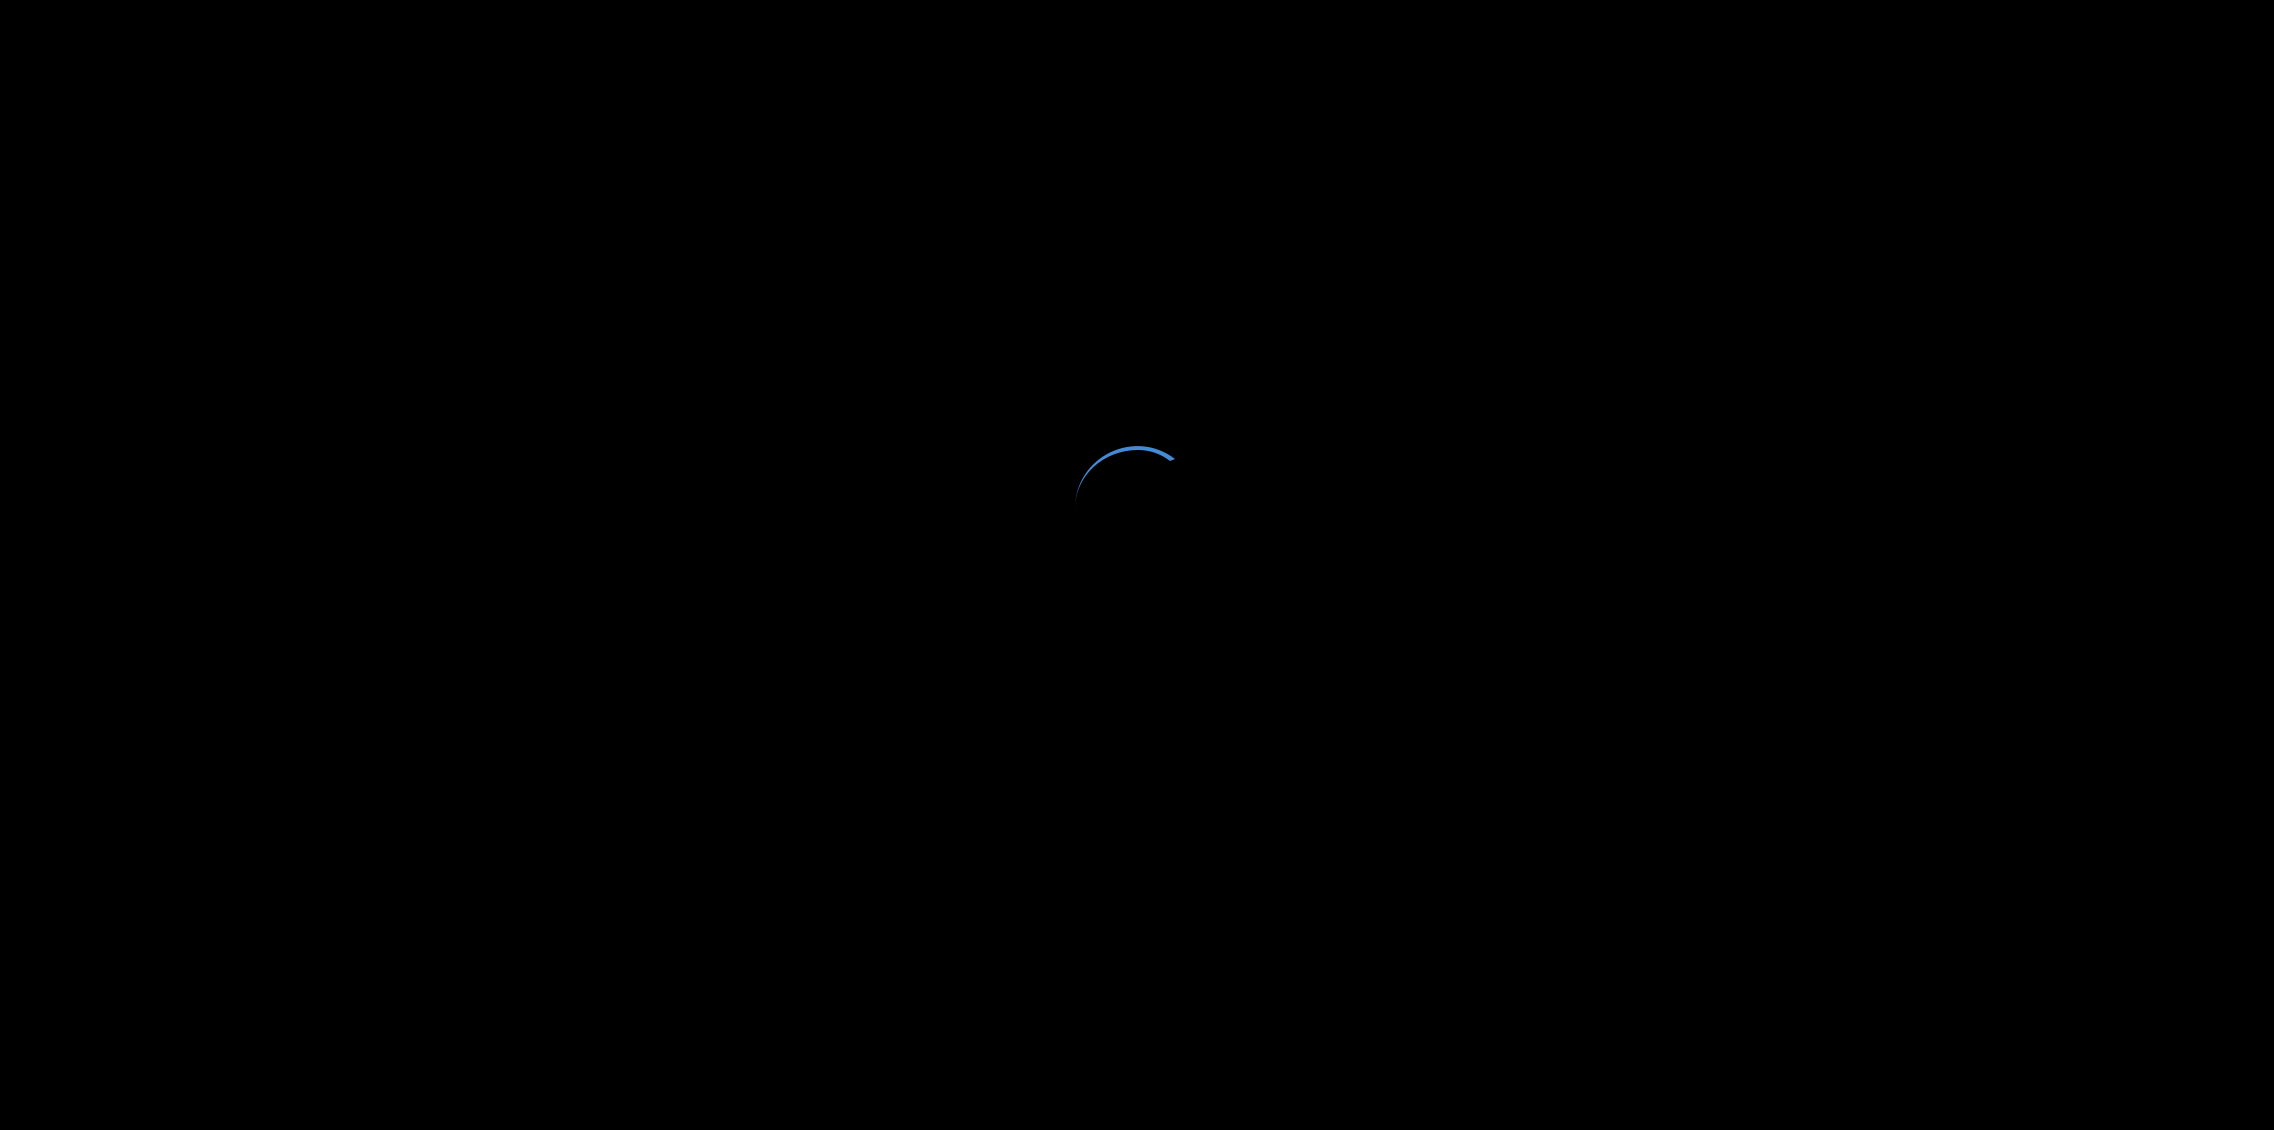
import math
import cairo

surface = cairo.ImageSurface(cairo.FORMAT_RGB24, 2274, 1130)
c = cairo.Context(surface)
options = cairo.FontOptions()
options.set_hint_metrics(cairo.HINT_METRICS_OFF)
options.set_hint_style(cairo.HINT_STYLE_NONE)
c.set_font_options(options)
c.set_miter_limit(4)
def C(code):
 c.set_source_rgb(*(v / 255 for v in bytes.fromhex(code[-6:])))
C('000000')
c.paint()
C('448bd6')
c.new_path()
c.move_to(1138,450)
c.curve_to(1103,450,1075,476,1075,509)
c.curve_to(1075,456,1135,428,1175,459)
c.line_to(1170,461)
c.curve_to(1161,454,1150,450,1138,450)
c.close_path()
c.fill()
surface.write_to_png('o.png')
